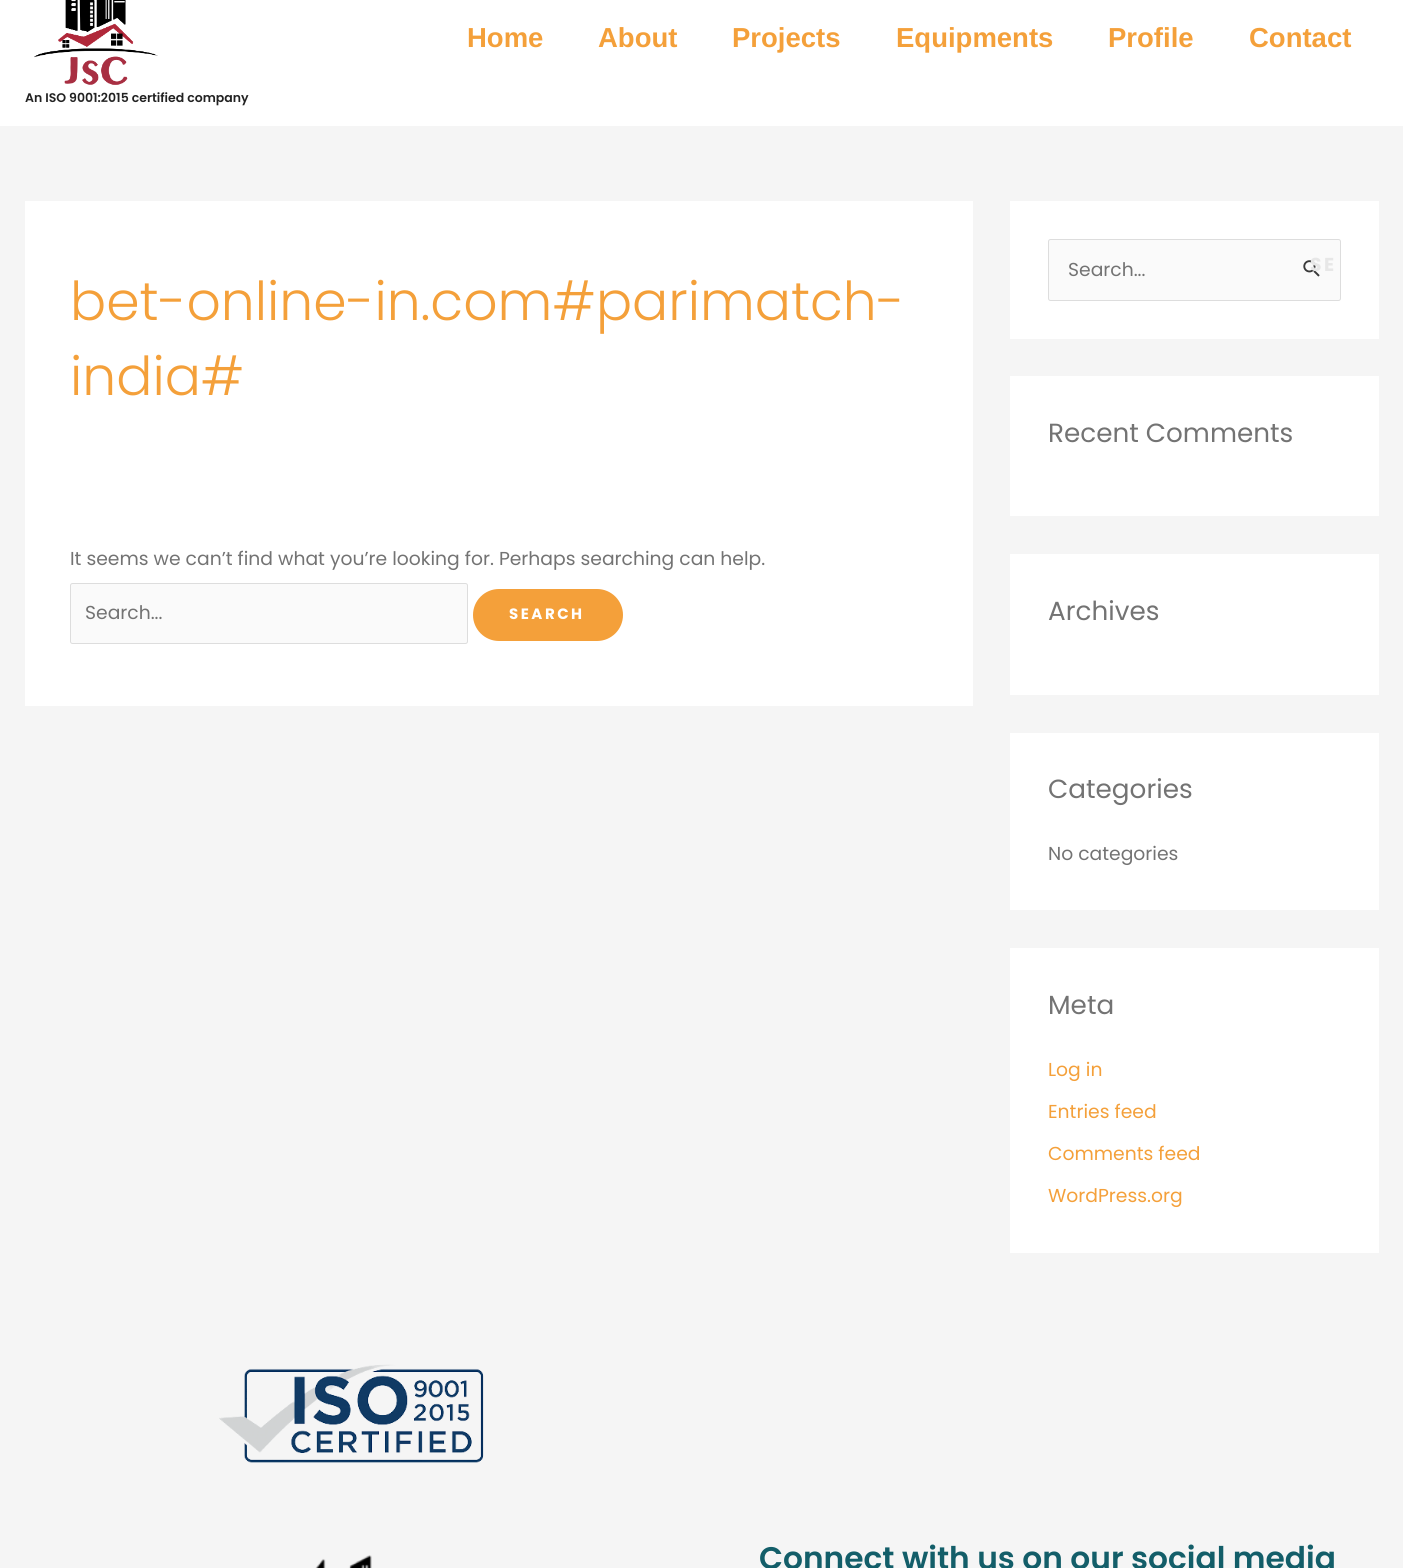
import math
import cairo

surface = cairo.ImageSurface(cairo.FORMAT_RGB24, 1403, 1568)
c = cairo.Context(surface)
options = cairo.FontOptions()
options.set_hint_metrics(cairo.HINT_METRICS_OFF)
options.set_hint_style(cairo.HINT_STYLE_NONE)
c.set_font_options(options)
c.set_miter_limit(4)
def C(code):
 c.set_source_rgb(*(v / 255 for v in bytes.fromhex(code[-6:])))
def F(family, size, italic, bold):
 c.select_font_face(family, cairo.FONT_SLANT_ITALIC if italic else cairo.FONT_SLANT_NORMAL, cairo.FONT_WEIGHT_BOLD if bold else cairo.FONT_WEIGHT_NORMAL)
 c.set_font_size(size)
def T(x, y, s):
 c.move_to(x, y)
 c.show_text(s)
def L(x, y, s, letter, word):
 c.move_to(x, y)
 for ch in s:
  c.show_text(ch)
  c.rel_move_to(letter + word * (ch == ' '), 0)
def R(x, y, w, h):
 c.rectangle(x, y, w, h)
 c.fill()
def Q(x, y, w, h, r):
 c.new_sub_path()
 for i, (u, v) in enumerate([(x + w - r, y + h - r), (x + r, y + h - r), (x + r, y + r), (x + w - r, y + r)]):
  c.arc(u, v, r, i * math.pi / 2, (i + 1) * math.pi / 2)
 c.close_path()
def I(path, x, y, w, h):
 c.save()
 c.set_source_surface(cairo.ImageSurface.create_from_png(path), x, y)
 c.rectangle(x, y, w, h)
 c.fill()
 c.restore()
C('f5f5f5')
c.paint()
C('ffffff')
R(0,0,1403,126)
F('Liberation Sans',27.5,0,1)
C('f4a03a')
T(467,47,'Home')
T(598,47,'About')
T(732,47,'Projects')
T(896,47,'Equipments')
T(1108,47,'Profile')
T(1249,47,'Contact')
I('1.png',34,0,124,85)
F('Poppins SemiBold',12.5,0,0)
C('222222')
T(25,102,'An ISO 9001:2015 certified company')
C('ffffff')
R(25,201,948,505)
F('Poppins Light',53.6,0,0)
C('f4a03a')
T(70,320,'bet-online-in.com#parimatch-')
T(70,395,'india#')
F('Poppins',18.75,0,0)
C('737373')
T(70,565,'It seems we can’t find what you’re looking for. Perhaps searching can help.')
C('fafafa')
Q(70.5,583.5,397,60,2)
c.fill_preserve()
C('dddddd')
c.set_line_width(1)
c.stroke()
C('737373')
T(85,619,'Search...')
C('f4a03a')
Q(473,589,150,52,26)
c.fill()
F('Poppins',15,0,1)
C('ffffff')
L(509,619,'SEARCH',2.5,0)
R(1010,201,369,138)
C('fafafa')
Q(1048.5,239.5,292,61,2)
c.fill_preserve()
C('dddddd')
c.stroke()
F('Poppins',18.75,0,0)
C('737373')
T(1068,276,'Search...')
I('2.png',1303,260,17,17)
F('Poppins',18.75,0,1)
C('e7e7e7')
L(1310,271,'SE',2.5,0)
C('ffffff')
R(1010,376,369,140)
F('Poppins',26.25,0,0)
C('737373')
T(1048,442,'Recent Comments')
C('ffffff')
R(1010,554,369,141)
C('737373')
T(1048,620,'Archives')
C('ffffff')
R(1010,733,369,177)
C('737373')
T(1048,798,'Categories')
F('Poppins',18.75,0,0)
T(1048,860,'No categories')
C('ffffff')
R(1010,948,369,305)
F('Poppins',26.25,0,0)
C('737373')
T(1048,1014,'Meta')
F('Poppins',18.75,0,0)
C('f4a03a')
T(1048,1076,'Log in')
T(1048,1118,'Entries feed')
T(1048,1160,'Comments feed')
T(1048,1202,'WordPress.org')
I('3.png',219,1364,265,99)
I('4.png',315,1555,57,13)
F('Poppins SemiBold',31.25,0,0)
C('135e69')
T(759,1569,'Connect with us on our social media')
surface.write_to_png('o.png')
